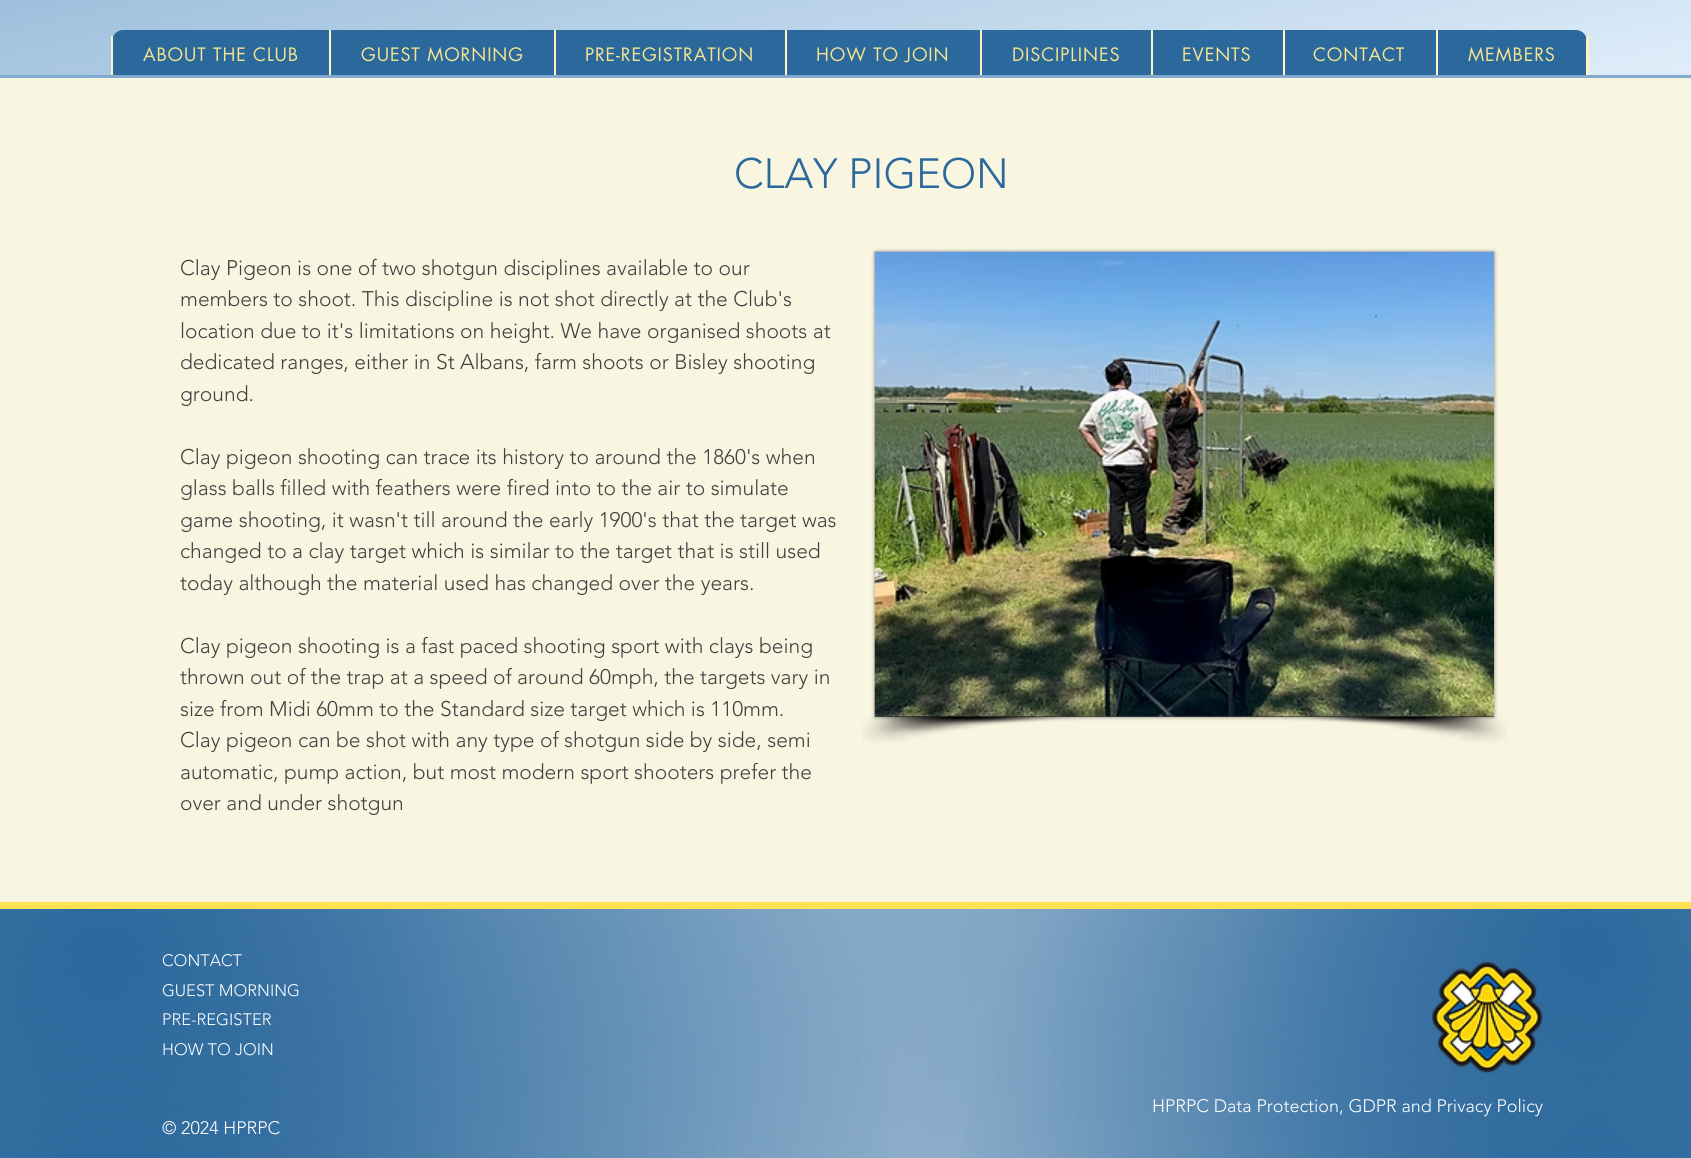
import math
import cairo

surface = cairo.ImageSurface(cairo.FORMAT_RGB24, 1691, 1158)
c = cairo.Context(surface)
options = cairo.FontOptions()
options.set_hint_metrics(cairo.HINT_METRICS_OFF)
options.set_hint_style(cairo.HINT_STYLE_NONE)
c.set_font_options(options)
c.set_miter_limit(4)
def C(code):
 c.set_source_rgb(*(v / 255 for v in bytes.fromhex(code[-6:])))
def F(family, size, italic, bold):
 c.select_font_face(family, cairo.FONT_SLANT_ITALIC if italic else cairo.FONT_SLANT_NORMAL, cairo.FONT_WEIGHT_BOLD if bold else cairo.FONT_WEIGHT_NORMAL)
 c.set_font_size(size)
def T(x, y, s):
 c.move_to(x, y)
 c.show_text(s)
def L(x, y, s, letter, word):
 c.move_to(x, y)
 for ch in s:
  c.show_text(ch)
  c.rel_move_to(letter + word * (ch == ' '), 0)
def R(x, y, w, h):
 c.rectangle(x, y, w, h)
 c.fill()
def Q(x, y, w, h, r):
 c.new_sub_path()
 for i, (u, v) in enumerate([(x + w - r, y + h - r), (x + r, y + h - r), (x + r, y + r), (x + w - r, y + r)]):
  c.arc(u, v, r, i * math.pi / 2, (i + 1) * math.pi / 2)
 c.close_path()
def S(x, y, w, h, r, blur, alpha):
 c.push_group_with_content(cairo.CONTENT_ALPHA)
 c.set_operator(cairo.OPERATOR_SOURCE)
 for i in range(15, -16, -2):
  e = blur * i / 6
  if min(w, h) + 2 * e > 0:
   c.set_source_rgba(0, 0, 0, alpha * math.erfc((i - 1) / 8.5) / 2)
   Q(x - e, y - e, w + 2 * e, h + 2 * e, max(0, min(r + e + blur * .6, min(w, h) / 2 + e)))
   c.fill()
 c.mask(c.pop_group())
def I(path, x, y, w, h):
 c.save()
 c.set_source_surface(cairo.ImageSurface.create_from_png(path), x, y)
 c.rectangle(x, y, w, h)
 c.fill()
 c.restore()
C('ffffff')
c.paint()
gradient = cairo.LinearGradient(771,-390,921,256)
gradient.add_color_stop_rgba(0,0.502,0.667,0.812,1)
gradient.add_color_stop_rgba(1,0.878,0.933,0.98,1)
c.set_source(gradient)
R(0,0,1691,75)
C('2b689c')
c.new_path()
c.move_to(123,30)
c.line_to(1576,30)
c.curve_to(1582,30,1587,35,1587,42)
c.line_to(1587,78)
c.line_to(112,78)
c.line_to(112,42)
c.curve_to(112,35,117,30,123,30)
c.close_path()
c.fill()
C('fff5c2')
R(1587,36,2,42)
R(111,36,2,42)
R(329,30,2,48)
F('futura',18,0,0)
C('f5e490')
L(143,61,'ABOUT THE CLUB',.9,0)
C('fff5c2')
R(554,30,2,48)
C('f5e490')
L(361,61,'GUEST MORNING',.9,0)
C('fff5c2')
R(785,30,2,48)
C('f5e490')
L(585,61,'PRE-REGISTRATION',.9,0)
C('fff5c2')
R(980,30,2,48)
C('f5e490')
L(816,61,'HOW TO JOIN',.9,0)
C('fff5c2')
R(1151,30,2,48)
C('f5e490')
L(1012,61,'DISCIPLINES',.9,0)
C('fff5c2')
R(1283,30,2,48)
C('f5e490')
L(1182,61,'EVENTS',.9,0)
C('fff5c2')
R(1436,30,2,48)
C('f5e490')
L(1313,61,'CONTACT',.9,0)
C('fff5c2')
c.new_path()
c.move_to(1586,78)
c.line_to(1587,78)
c.line_to(1587,42)
c.curve_to(1587,40,1587,38,1586,37)
c.close_path()
c.fill()
C('f5e490')
L(1468,61,'MEMBERS',.9,0)
C('80aacf')
R(0,75,1691,3)
C('f8f5e1')
R(0,78,1691,824)
F('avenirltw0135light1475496 Light',42,0,0)
C('2b689c')
T(734,188,'CLAY PIGEON')
F('avenirltw0135light1475496 Light',21,0,0)
C('414141')
T(180,275,'Clay Pigeon is one of two shotgun disciplines available to our')
T(180,306,'members to shoot. This discipline is not shot directly at the Club\'s')
T(180,338,'location due to it\'s limitations on height. We have organised shoots at')
T(180,369,'dedicated ranges, either in St Albans, farm shoots or Bisley shooting')
T(180,401,'ground.')
T(180,464,'Clay pigeon shooting can trace its history to around the 1860\'s when')
T(180,495,'glass balls filled with feathers were fired into to the air to simulate')
T(180,527,'game shooting, it wasn\'t till around the early 1900\'s that the target was')
T(180,558,'changed to a clay target which is similar to the target that is still used')
T(180,590,'today although the material used has changed over the years.')
T(180,653,'Clay pigeon shooting is a fast paced shooting sport with clays being')
T(180,684,'thrown out of the trap at a speed of around 60mph, the targets vary in')
T(180,716,'size from Midi 60mm to the Standard size target which is 110mm.')
T(180,747,'Clay pigeon can be shot with any type of shotgun side by side, semi')
T(180,779,'automatic, pump action, but most modern sport shooters prefer the')
T(180,810,'over and under shotgun')
C('000000')
S(875,252,619,465,0,2,.5)
C('414141')
R(875,716,619,1)
I('1.png',874,251,620,466)
I('2.png',862,716,223,27)
I('3.png',1284,716,223,27)
C('ffe252')
R(0,902,1691,7)
gradient = cairo.RadialGradient(1585,950,0,1585,950,1617)
gradient.add_color_stop_rgba(0,0.169,0.408,0.612,1)
gradient.add_color_stop_rgba(.7,1,1,1,1)
c.set_source(gradient)
R(471,909,1220,249)
gradient = cairo.RadialGradient(104,955,0,104,955,1619)
gradient.add_color_stop_rgba(0,0.169,0.408,0.612,1)
gradient.add_color_stop_rgba(.7,0.169,0.408,0.612,0)
c.set_source(gradient)
R(0,909,1208,249)
gradient = cairo.RadialGradient(110,1227,0,110,1227,1614)
gradient.add_color_stop_rgba(0,0.169,0.408,0.612,.99)
gradient.add_color_stop_rgba(.5,0.169,0.408,0.612,0)
c.set_source(gradient)
R(0,909,889,249)
gradient = cairo.RadialGradient(1596,1233,0,1596,1233,1629)
gradient.add_color_stop_rgba(0,0.169,0.408,0.612,1)
gradient.add_color_stop_rgba(.4,0.169,0.408,0.612,0)
c.set_source(gradient)
R(964,909,727,249)
F('avenirltw0135light1475496 Light',16.5,0,0)
C('ffffff')
T(162,966,'CONTACT')
T(162,996,'GUEST MORNING')
T(162,1025,'PRE-REGISTER')
T(162,1055,'HOW TO JOIN')
F('avenirltw0135light1475496 Light',18,0,0)
T(162,1134,'© 2024 HPRPC')
I('4.png',1431,961,112,112)
T(1152,1112,'HPRPC Data Protection, GDPR and Privacy Policy')
surface.write_to_png('o.png')
